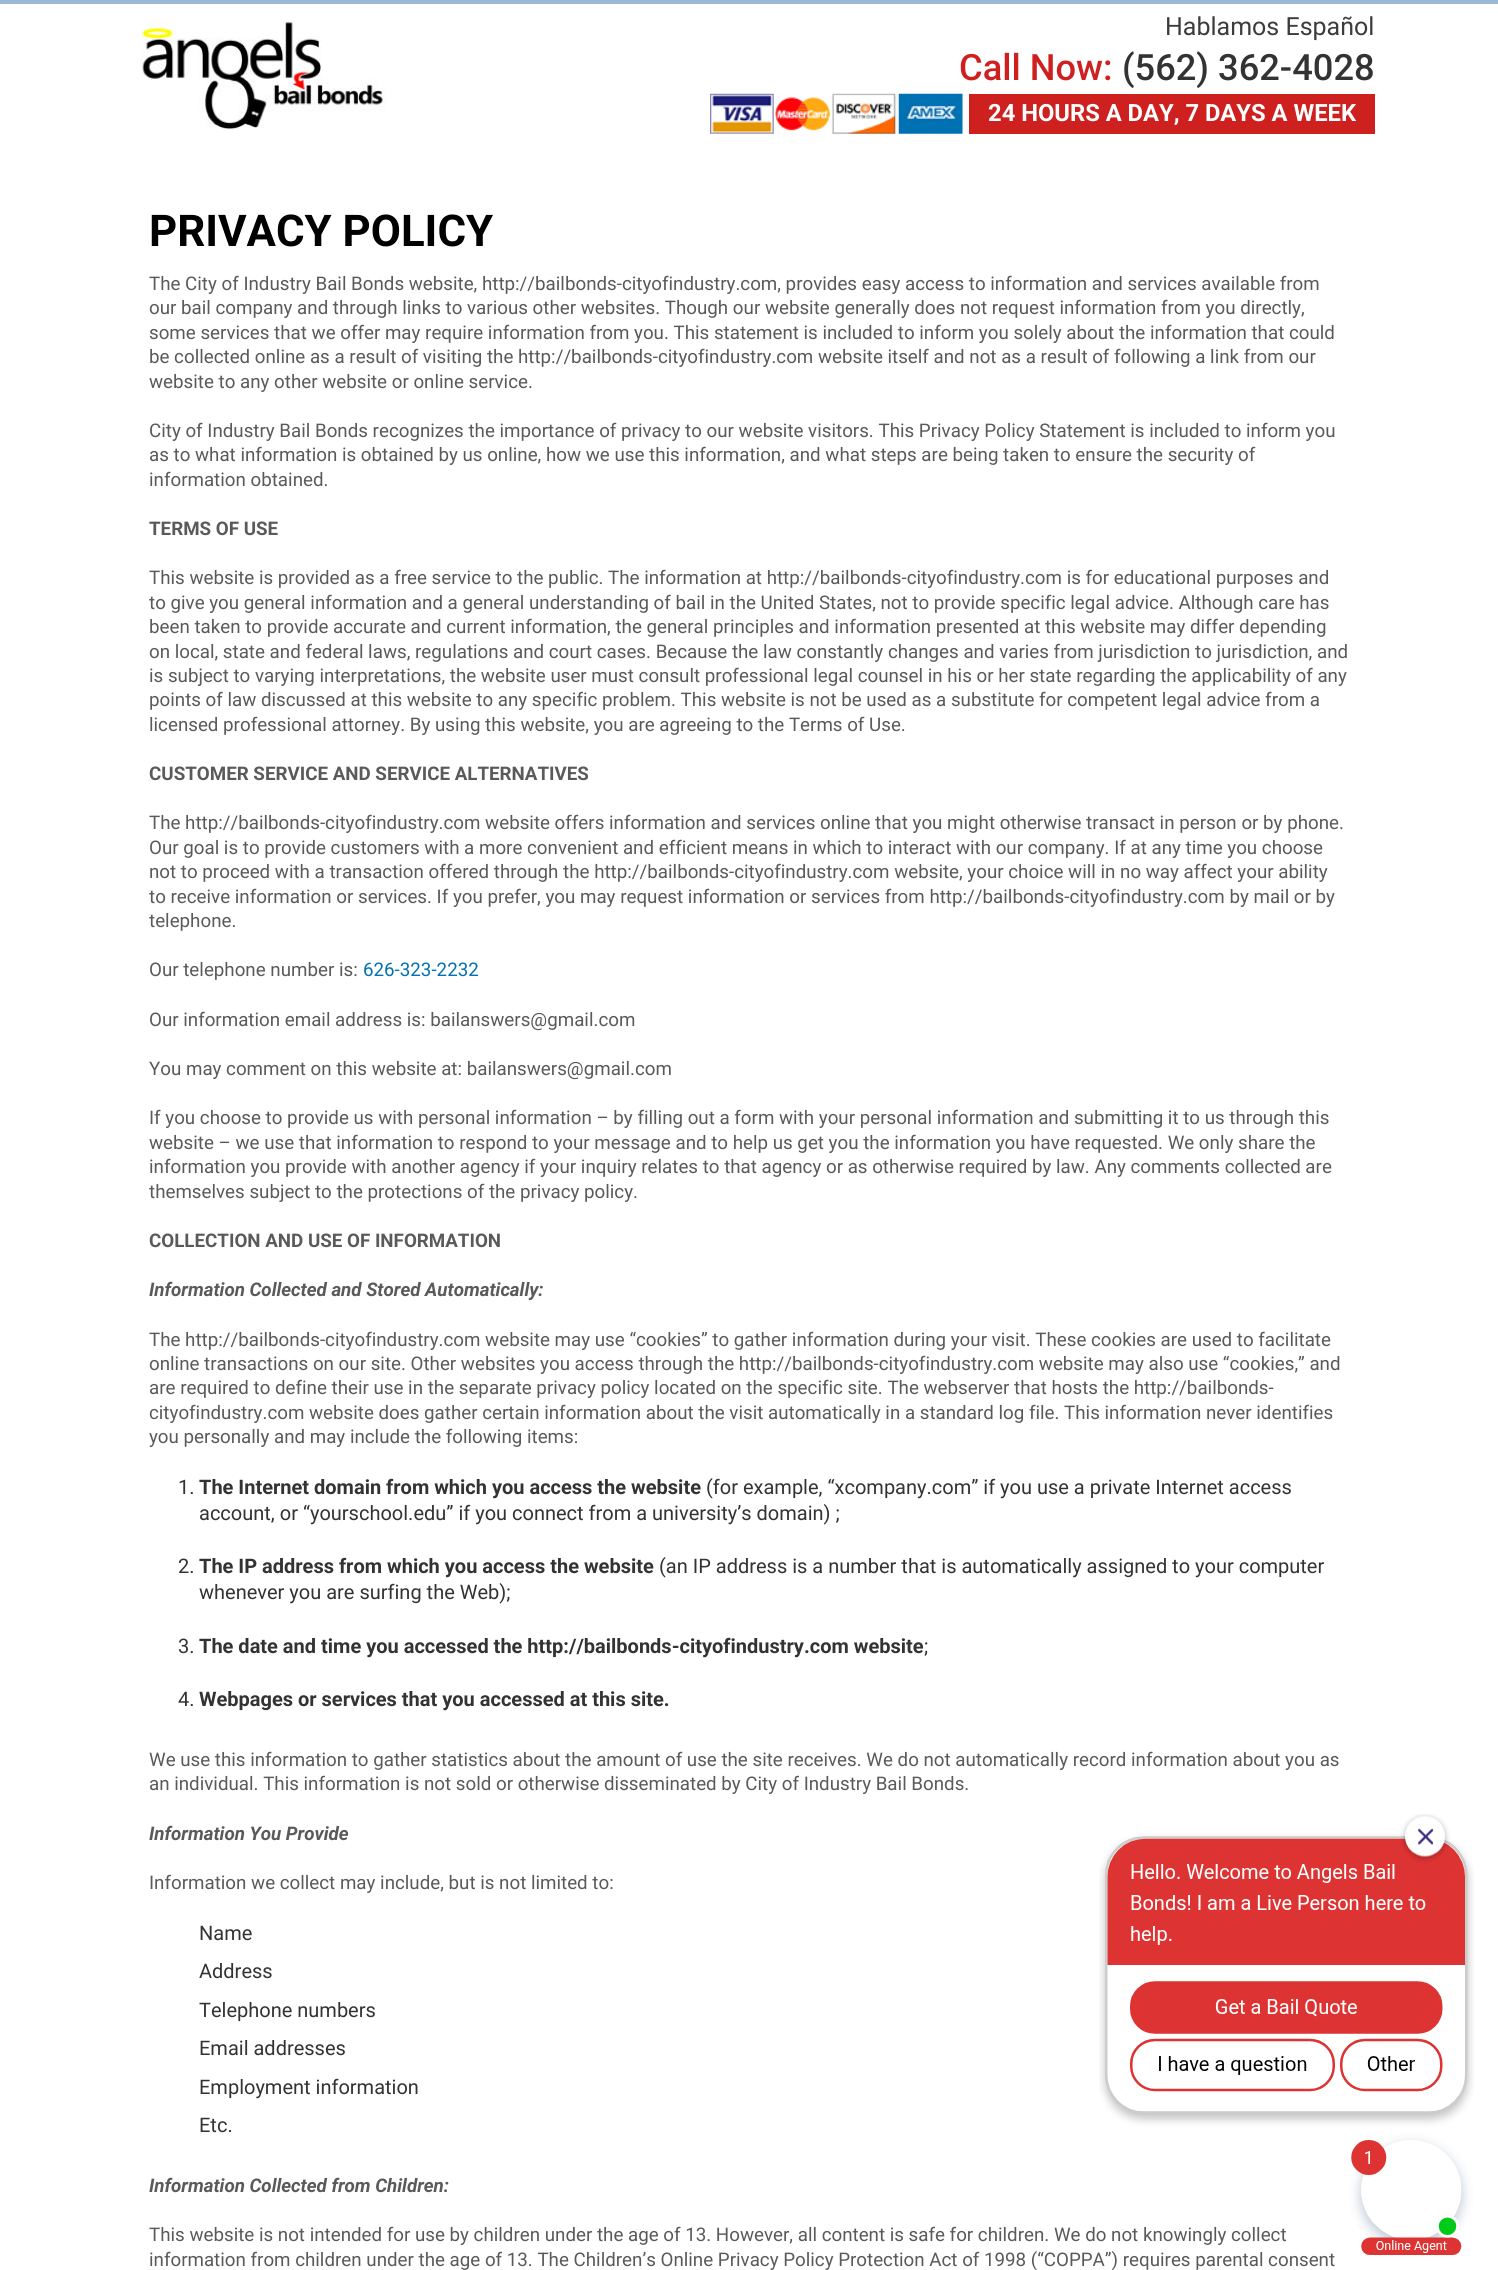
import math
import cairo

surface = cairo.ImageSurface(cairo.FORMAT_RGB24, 1498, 2270)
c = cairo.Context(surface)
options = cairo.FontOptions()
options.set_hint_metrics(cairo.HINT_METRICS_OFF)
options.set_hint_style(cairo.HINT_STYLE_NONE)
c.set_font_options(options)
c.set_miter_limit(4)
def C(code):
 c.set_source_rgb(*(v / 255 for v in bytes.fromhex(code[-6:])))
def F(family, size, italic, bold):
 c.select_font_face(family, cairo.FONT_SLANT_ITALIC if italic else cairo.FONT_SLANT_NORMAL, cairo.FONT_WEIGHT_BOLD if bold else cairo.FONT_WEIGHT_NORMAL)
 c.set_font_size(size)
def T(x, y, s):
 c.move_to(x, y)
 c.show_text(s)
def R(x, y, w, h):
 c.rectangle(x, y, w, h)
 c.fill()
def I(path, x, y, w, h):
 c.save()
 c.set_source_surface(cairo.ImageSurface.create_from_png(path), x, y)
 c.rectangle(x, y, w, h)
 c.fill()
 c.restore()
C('ffffff')
c.paint()
C('9db8d6')
R(0,0,1498,4)
I('1.png',140,21,246,109)
F('Roboto',25,0,0)
C('3d3b3b')
T(1165,35,'Hablamos Español')
F('Roboto Medium',36.25,0,0)
C('cf2020')
T(959,80,'Call Now:')
C('333333')
T(1122,80,'(562) 362-4028')
I('2.png',710,93,253,41)
C('cf2020')
R(969,94,406,40)
F('Roboto',23.75,0,1)
C('ffffff')
T(988,121,'24 HOURS A DAY, 7 DAYS A WEEK')
F('Roboto',43.75,0,1)
C('000000')
T(149,246,'PRIVACY POLICY')
F('Roboto',18.75,0,0)
C('5a5a5a')
T(149,290,'The City of Industry Bail Bonds website, http://bailbonds-cityofindustry.com, provides easy access to information and services available from')
T(149,314,'our bail company and through links to various other websites. Though our website generally does not request information from you directly,')
T(149,339,'some services that we offer may require information from you. This statement is included to inform you solely about the information that could')
T(149,363,'be collected online as a result of visiting the http://bailbonds-cityofindustry.com website itself and not as a result of following a link from our')
T(149,388,'website to any other website or online service.')
T(149,437,'City of Industry Bail Bonds recognizes the importance of privacy to our website visitors. This Privacy Policy Statement is included to inform you')
T(149,461,'as to what information is obtained by us online, how we use this information, and what steps are being taken to ensure the security of')
T(149,486,'information obtained.')
F('Roboto',18.75,0,1)
T(149,535,'TERMS OF USE')
F('Roboto',18.75,0,0)
T(149,584,'This website is provided as a free service to the public. The information at http://bailbonds-cityofindustry.com is for educational purposes and')
T(149,609,'to give you general information and a general understanding of bail in the United States, not to provide specific legal advice. Although care has')
T(149,633,'been taken to provide accurate and current information, the general principles and information presented at this website may differ depending')
T(149,658,'on local, state and federal laws, regulations and court cases. Because the law constantly changes and varies from jurisdiction to jurisdiction, and')
T(149,682,'is subject to varying interpretations, the website user must consult professional legal counsel in his or her state regarding the applicability of any')
T(149,706,'points of law discussed at this website to any specific problem. This website is not be used as a substitute for competent legal advice from a')
T(149,731,'licensed professional attorney. By using this website, you are agreeing to the Terms of Use.')
F('Roboto',18.75,0,1)
T(149,780,'CUSTOMER SERVICE AND SERVICE ALTERNATIVES')
F('Roboto',18.75,0,0)
T(149,829,'The http://bailbonds-cityofindustry.com website offers information and services online that you might otherwise transact in person or by phone.')
T(149,854,'Our goal is to provide customers with a more convenient and efficient means in which to interact with our company. If at any time you choose')
T(149,878,'not to proceed with a transaction offered through the http://bailbonds-cityofindustry.com website, your choice will in no way affect your ability')
T(149,903,'to receive information or services. If you prefer, you may request information or services from http://bailbonds-cityofindustry.com by mail or by')
T(149,927,'telephone.')
T(149,976,'Our telephone number is:')
C('0071b2')
T(363,976,'626-323-2232')
C('5a5a5a')
T(149,1026,'Our information email address is: bailanswers@gmail.com')
T(149,1075,'You may comment on this website at: bailanswers@gmail.com')
T(149,1124,'If you choose to provide us with personal information – by filling out a form with your personal information and submitting it to us through this')
T(149,1149,'website – we use that information to respond to your message and to help us get you the information you have requested. We only share the')
T(149,1173,'information you provide with another agency if your inquiry relates to that agency or as otherwise required by law. Any comments collected are')
T(149,1198,'themselves subject to the protections of the privacy policy.')
F('Roboto',18.75,0,1)
T(149,1247,'COLLECTION AND USE OF INFORMATION')
F('Roboto',18.75,1,1)
T(149,1296,'Information Collected and Stored Automatically:')
F('Roboto',18.75,0,0)
T(149,1346,'The http://bailbonds-cityofindustry.com website may use “cookies” to gather information during your visit. These cookies are used to facilitate')
T(149,1370,'online transactions on our site. Other websites you access through the http://bailbonds-cityofindustry.com website may also use “cookies,” and')
T(149,1394,'are required to define their use in the separate privacy policy located on the specific site. The webserver that hosts the http://bailbonds-')
T(149,1419,'cityofindustry.com website does gather certain information about the visit automatically in a standard log file. This information never identifies')
T(149,1443,'you personally and may include the following items:')
F('Roboto',20,0,0)
C('333333')
T(178,1494,'1.')
F('Roboto',20,0,1)
T(199,1494,'The Internet domain from which you access the website')
F('Roboto',20,0,0)
T(706,1494,'(for example, “xcompany.com” if you use a private Internet access')
T(199,1520,'account, or “yourschool.edu” if you connect from a university’s domain) ;')
T(178,1573,'2.')
F('Roboto',20,0,1)
T(199,1573,'The IP address from which you access the website')
F('Roboto',20,0,0)
T(659,1573,'(an IP address is a number that is automatically assigned to your computer')
T(199,1599,'whenever you are surfing the Web);')
T(178,1653,'3.')
F('Roboto',20,0,1)
T(199,1653,'The date and time you accessed the http://bailbonds-cityofindustry.com website')
F('Roboto',20,0,0)
T(924,1653,';')
T(178,1706,'4.')
F('Roboto',20,0,1)
T(199,1706,'Webpages or services that you accessed at this site.')
F('Roboto',18.75,0,0)
C('5a5a5a')
T(149,1766,'We use this information to gather statistics about the amount of use the site receives. We do not automatically record information about you as')
T(149,1790,'an individual. This information is not sold or otherwise disseminated by City of Industry Bail Bonds.')
F('Roboto',18.75,1,1)
T(149,1840,'Information You Provide')
F('Roboto',18.75,0,0)
T(149,1889,'Information we collect may include, but is not limited to:')
F('Roboto',20,0,0)
C('333333')
T(199,1940,'Name')
T(199,1978,'Address')
T(199,2017,'Telephone numbers')
T(199,2055,'Email addresses')
T(199,2094,'Employment information')
T(199,2132,'Etc.')
F('Roboto',18.75,1,1)
C('5a5a5a')
T(149,2192,'Information Collected from Children:')
F('Roboto',18.75,0,0)
T(149,2241,'This website is not intended for use by children under the age of 13. However, all content is safe for children. We do not knowingly collect')
T(149,2266,'information from children under the age of 13. The Children’s Online Privacy Policy Protection Act of 1998 (“COPPA”) requires parental consent')
I('3.png',1099,1814,375,441)
surface.write_to_png('o.png')
